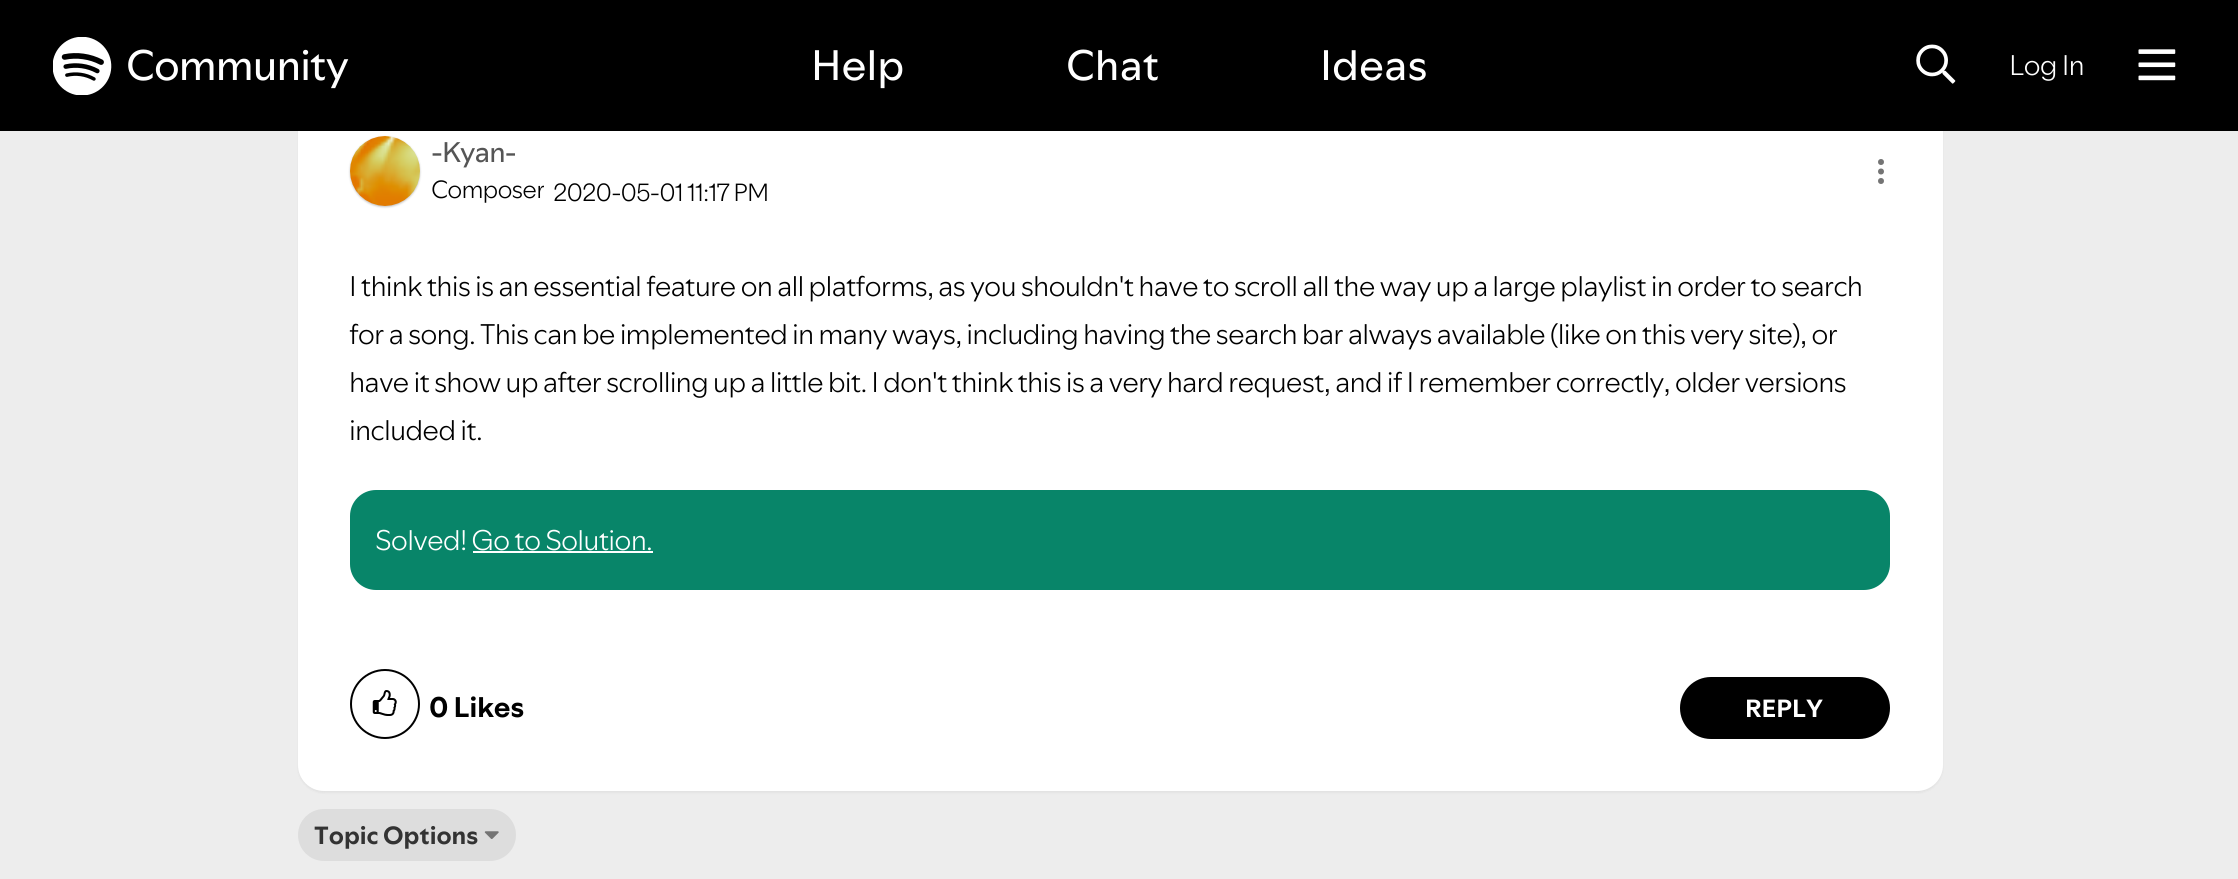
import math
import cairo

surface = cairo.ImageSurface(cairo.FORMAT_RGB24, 2238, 879)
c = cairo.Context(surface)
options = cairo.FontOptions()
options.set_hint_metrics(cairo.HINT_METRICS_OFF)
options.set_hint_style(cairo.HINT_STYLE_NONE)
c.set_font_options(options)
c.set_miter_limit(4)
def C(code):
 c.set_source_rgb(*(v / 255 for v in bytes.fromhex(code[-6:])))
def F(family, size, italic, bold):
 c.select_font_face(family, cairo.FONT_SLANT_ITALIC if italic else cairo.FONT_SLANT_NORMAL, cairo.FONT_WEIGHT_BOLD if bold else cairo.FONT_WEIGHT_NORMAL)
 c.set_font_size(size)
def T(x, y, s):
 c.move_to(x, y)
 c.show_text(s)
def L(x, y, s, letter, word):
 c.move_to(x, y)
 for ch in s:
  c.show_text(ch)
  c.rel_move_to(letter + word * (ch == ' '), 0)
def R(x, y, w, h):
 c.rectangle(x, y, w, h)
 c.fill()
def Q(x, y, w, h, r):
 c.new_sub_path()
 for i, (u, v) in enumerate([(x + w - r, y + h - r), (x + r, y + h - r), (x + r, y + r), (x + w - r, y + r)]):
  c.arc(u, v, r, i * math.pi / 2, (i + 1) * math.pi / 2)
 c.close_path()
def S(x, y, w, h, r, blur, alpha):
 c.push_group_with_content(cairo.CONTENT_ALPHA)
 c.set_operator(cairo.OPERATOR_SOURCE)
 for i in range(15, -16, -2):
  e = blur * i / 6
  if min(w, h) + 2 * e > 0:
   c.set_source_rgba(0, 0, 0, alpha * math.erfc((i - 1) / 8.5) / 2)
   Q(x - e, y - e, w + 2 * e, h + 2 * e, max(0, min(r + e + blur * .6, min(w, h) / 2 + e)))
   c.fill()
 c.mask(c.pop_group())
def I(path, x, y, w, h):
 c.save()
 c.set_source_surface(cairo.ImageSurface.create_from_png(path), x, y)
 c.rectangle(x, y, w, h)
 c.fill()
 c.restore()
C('ededed')
c.paint()
C('000000')
S(298,81,1645,712,26,1,.05)
C('ffffff')
Q(298,79,1645,712,26)
c.fill()
C('000000')
R(0,0,2238,131)
I('1.png',53,37,59,58)
F('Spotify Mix',42,0,0)
C('ffffff')
L(126,80,'Community',-.88,0)
T(811,80,'Help')
T(1066,80,'Chat')
T(1320,80,'Ideas')
I('2.png',1916,44,40,40)
F('Spotify Mix Light',28,0,0)
L(2009,75,'Log In',-.88,0)
I('3.png',2138,49,38,32)
C('c4c4c4')
S(350,137,70,70,35,1,1)
I('4.png',350,136,70,70)
F('Spotify Mix',28,0,0)
C('555555')
L(431,162,'-Kyan-',-.88,0)
c.save()
c.rectangle(432,173,112,35)
c.clip()
F('Spotify Mix Light',24.5,0,0)
C('000000')
L(431,198,'Composer',-.88,0)
c.restore()
F('Spotify Mix Light',24.5,0,0)
C('000000')
L(553,201,'2020-05-01',-.88,0)
L(687,201,'11:17 PM',-.88,0)
C('747474')
c.new_path()
c.arc(1881,162,3,0,2 * math.pi)
c.fill()
c.arc(1881,171.5,3,0,2 * math.pi)
c.fill()
c.arc(1881,181,3,0,2 * math.pi)
c.fill()
F('Spotify Mix Light',28,0,0)
C('000000')
L(349,296,'I think this is an essential feature on all platforms, as you shouldn\'t have to scroll all the way up a large playlist in order to search',-.88,0)
L(349,344,'for a song. This can be implemented in many ways, including having the search bar always available (like on this very site), or',-.88,0)
L(349,392,'have it show up after scrolling up a little bit. I don\'t think this is a very hard request, and if I remember correctly, older versions',-.88,0)
L(349,440,'included it.',-.88,0)
C('088569')
Q(350,490,1540,100,26)
c.fill()
C('ffffff')
L(375,550,'Solved! Go to Solution.',-.88,0)
R(473,551,180,2)
c.new_path()
c.arc(385,704,34,0,2 * math.pi)
C('000000')
c.stroke()
I('5.png',372,690,25,26)
F('Spotify Mix',28,0,1)
T(429,717,'0 Likes')
Q(1681,678,208,60,30)
c.fill_preserve()
c.stroke()
F('Spotify Mix',24.5,0,1)
C('ffffff')
T(1745,717,'REPLY')
C('dddddd')
Q(298,809,218,52,26)
c.fill()
C('333333')
T(314,844,'Topic Options')
I('6.png',484,831,15,8)
surface.write_to_png('o.png')
